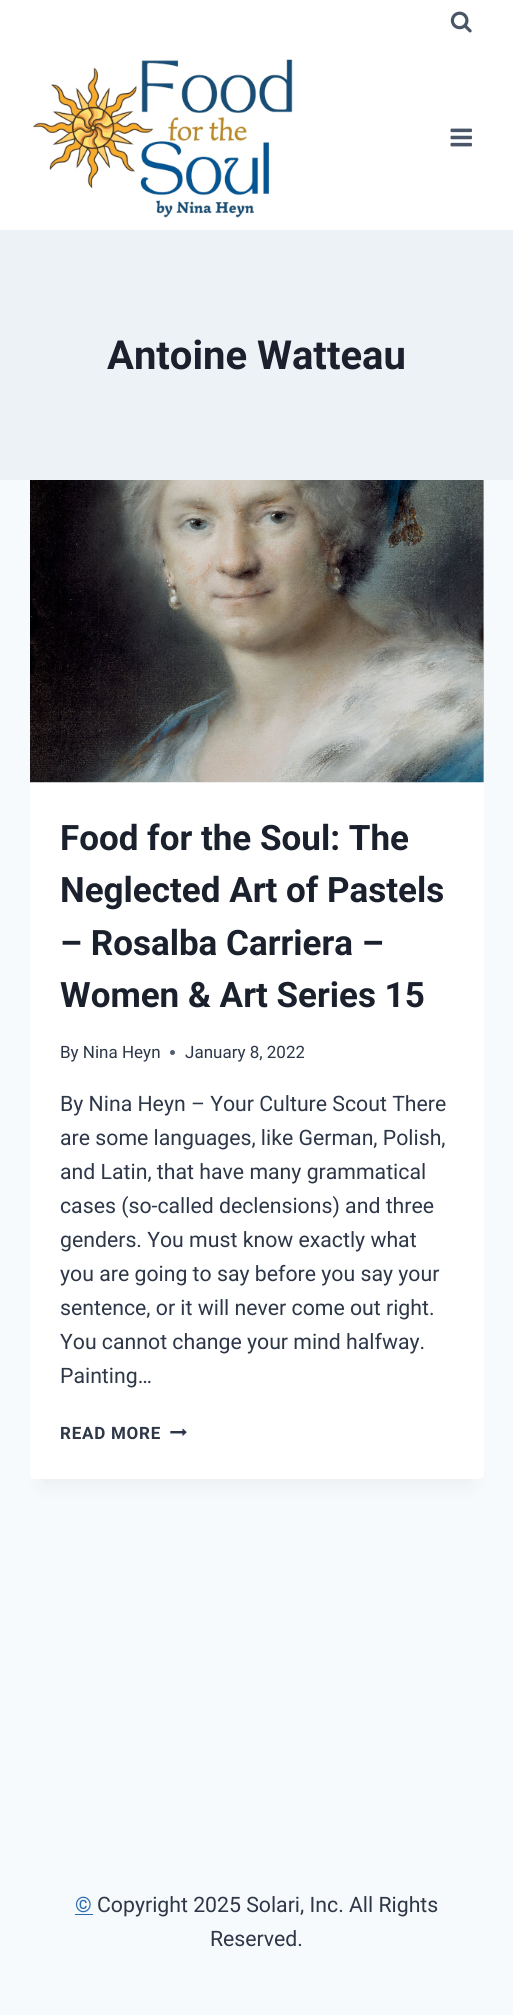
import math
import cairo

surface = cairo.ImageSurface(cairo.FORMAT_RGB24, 513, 2015)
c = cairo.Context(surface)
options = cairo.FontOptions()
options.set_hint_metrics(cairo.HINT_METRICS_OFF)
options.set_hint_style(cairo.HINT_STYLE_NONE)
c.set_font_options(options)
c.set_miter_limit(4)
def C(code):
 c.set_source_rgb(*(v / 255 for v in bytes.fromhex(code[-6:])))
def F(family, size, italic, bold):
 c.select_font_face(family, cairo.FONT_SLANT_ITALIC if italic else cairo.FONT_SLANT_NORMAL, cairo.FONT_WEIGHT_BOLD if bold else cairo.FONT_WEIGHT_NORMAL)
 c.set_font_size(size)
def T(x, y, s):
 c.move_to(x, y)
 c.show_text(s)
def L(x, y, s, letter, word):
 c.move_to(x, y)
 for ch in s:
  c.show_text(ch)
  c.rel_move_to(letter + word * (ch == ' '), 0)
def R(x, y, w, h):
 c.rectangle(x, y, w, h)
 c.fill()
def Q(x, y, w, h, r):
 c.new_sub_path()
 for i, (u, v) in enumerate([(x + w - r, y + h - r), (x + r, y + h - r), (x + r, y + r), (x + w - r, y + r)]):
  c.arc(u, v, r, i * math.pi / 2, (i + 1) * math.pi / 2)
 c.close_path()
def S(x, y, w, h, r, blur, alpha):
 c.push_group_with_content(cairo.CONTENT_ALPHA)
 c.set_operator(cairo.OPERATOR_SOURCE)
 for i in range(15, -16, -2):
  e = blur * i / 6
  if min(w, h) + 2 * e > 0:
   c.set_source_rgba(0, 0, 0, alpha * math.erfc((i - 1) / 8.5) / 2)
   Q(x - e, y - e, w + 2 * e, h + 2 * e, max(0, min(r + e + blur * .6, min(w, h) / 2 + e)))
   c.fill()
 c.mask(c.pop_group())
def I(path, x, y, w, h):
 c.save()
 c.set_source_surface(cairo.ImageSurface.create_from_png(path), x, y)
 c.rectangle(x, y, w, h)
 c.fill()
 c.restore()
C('f7fafc')
c.paint()
C('ffffff')
R(0,0,513,230)
I('1.png',450,11,22,22)
I('2.png',33,59,260,159)
I('3.png',450,128,22,19)
C('edf2f7')
R(0,230,513,250)
F('Roboto',40,0,1)
C('1a202c')
T(107,369,'Antoine Watteau')
C('000000')
S(43,511,428,974,0,9.5,.05)
C('ffffff')
Q(30,480,454,999,5)
c.fill()
I('4.png',30,480,454,303)
F('Roboto',35,0,1)
C('1a202c')
T(60,850,'Food for the Soul: The')
T(60,902,'Neglected Art of Pastels')
T(60,955,'– Rosalba Carriera –')
T(60,1007,'Women & Art Series 15')
F('Roboto',17,0,0)
C('2d3748')
T(60,1058,'By Nina Heyn')
C('575f6d')
c.new_path()
c.arc(172.5,1052.5,2.5,0,2 * math.pi)
c.fill()
C('2d3748')
T(185,1058,'January 8, 2022')
F('Roboto',21.25,0,0)
T(60,1111,'By Nina Heyn – Your Culture Scout There')
T(60,1145,'are some languages, like German, Polish,')
T(60,1179,'and Latin, that have many grammatical')
T(60,1213,'cases (so-called declensions) and three')
T(60,1247,'genders. You must know exactly what')
T(60,1281,'you are going to say before you say your')
T(60,1315,'sentence, or it will never come out right.')
T(60,1349,'You cannot change your mind halfway.')
T(60,1383,'Painting…')
F('Roboto',17,0,1)
L(60,1439,'READ MORE',.75,0)
I('5.png',170,1428,17,8)
F('Roboto',21.25,0,0)
C('2b6cb0')
T(75,1912,'©')
R(75,1914,18,1)
C('2d3748')
T(97,1912,'Copyright 2025 Solari, Inc. All Rights')
T(210,1946,'Reserved.')
surface.write_to_png('o.png')
